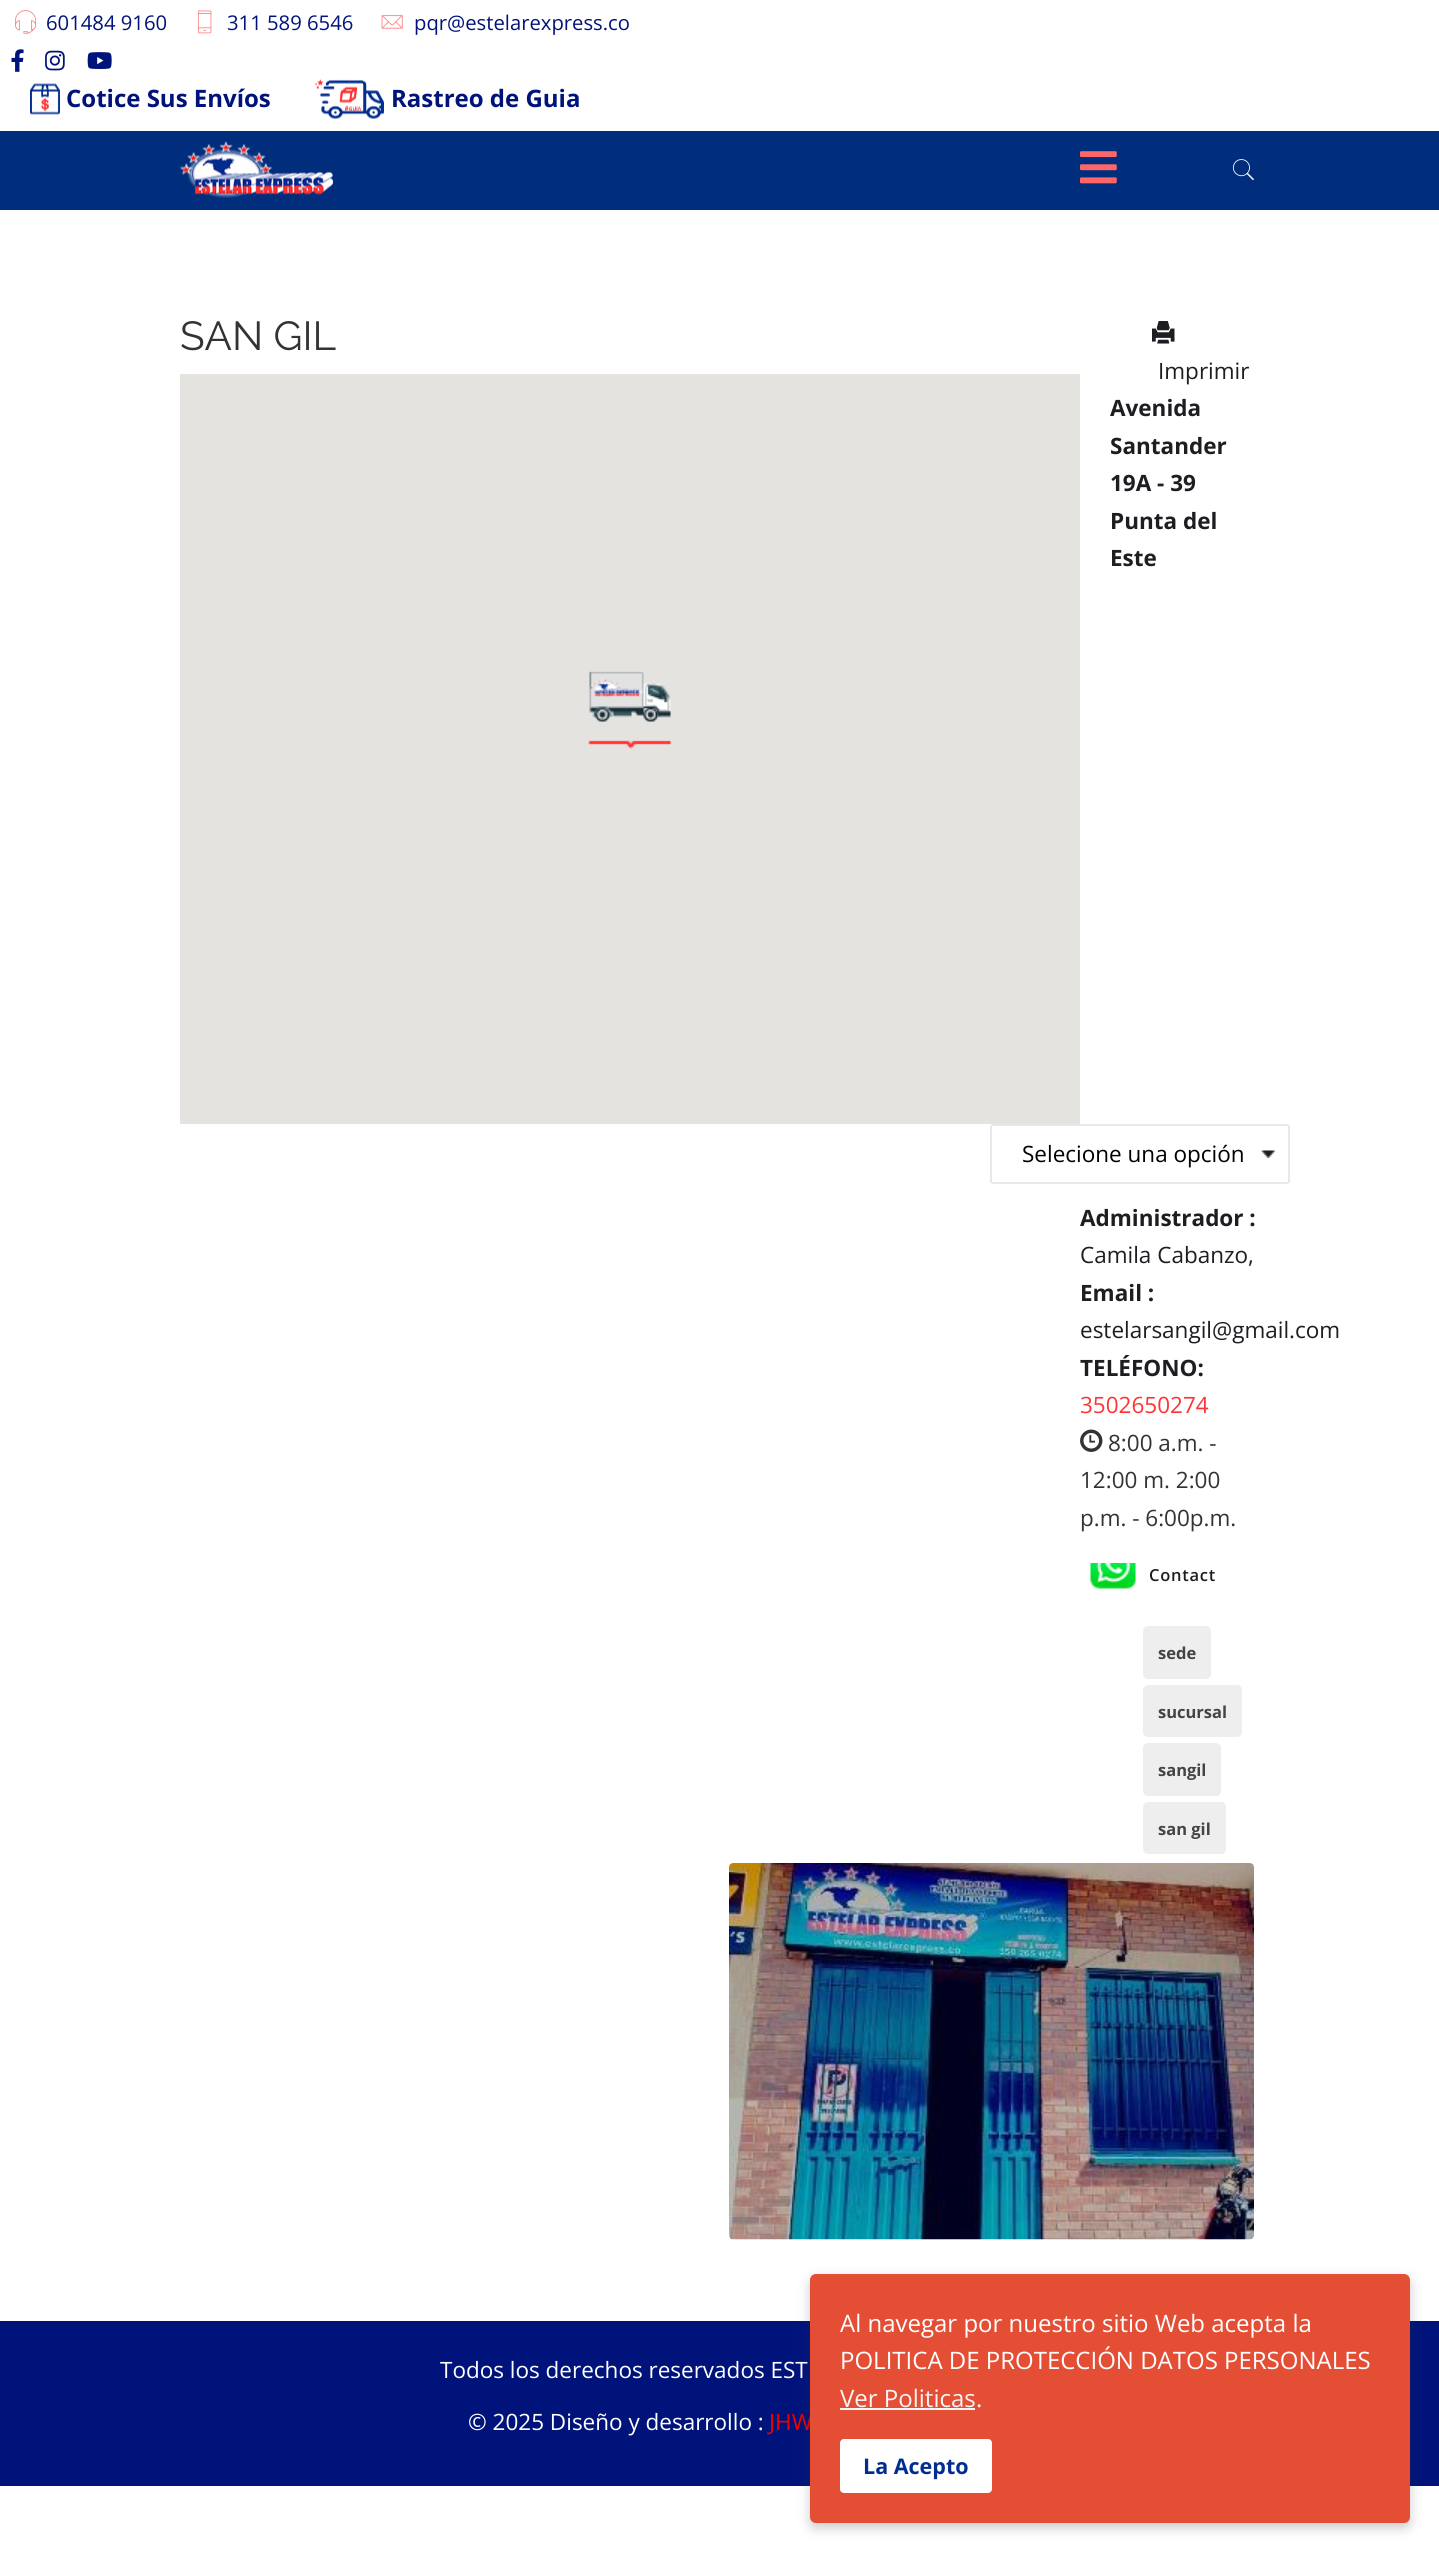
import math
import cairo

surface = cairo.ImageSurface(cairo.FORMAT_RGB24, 1439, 2552)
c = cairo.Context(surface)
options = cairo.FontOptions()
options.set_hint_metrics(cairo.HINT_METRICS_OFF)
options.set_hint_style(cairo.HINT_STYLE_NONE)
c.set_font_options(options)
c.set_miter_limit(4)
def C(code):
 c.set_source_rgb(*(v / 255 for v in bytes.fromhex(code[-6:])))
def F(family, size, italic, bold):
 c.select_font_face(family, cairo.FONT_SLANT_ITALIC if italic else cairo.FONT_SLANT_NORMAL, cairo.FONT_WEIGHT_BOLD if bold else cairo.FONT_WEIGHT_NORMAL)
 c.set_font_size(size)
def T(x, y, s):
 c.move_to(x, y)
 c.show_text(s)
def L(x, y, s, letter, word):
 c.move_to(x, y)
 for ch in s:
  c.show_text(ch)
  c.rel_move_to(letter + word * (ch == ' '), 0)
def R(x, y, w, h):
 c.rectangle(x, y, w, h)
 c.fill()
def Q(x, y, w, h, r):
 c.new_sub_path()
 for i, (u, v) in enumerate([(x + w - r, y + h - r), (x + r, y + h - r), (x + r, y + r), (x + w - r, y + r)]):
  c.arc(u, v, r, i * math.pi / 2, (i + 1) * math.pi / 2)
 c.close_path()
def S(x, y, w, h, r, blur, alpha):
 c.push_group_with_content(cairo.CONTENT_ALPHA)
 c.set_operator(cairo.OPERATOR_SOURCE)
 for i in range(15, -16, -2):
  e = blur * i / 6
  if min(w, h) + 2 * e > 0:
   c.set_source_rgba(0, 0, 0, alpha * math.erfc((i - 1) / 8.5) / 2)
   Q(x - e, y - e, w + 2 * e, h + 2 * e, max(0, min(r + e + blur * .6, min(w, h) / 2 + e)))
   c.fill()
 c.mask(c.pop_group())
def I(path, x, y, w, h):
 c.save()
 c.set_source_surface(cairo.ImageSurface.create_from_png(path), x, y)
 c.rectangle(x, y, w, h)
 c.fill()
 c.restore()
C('ffffff')
c.paint()
I('1.png',15,10,22,24)
F('Open Sans',20.25,0,0)
C('00137a')
T(46,30,'601484 9160')
I('2.png',197,10,15,24)
T(227,30,'311 589 6546')
I('3.png',381,15,22,14)
T(414,30,'pqr@estelarexpress.co')
I('4.png',11,49,13,23)
I('5.png',45,50,20,21)
I('6.png',87,52,25,17)
I('7.png',30,83,30,32)
F('Open Sans',24,0,1)
T(66,107,'Cotice Sus Envíos')
I('8.png',315,79,69,40)
T(391,107,'Rastreo de Guia')
C('002e7c')
R(0,131,1439,79)
I('9.png',180,141,154,57)
I('10.png',1080,151,37,33)
I('11.png',1232,159,22,22)
F('Raleway',40.5,0,0)
C('333333')
T(180,350,'SAN GIL')
C('e5e3df')
R(180,374,900,750)
I('12.png',588,671,83,78)
I('13.png',1152,321,23,23)
F('Open Sans',22.5,0,0)
C('1f1d22')
T(1158,379,'Imprimir')
F('Open Sans',22.5,0,1)
T(1110,416,'Avenida')
T(1110,454,'Santander')
T(1110,491,'19A - 39')
T(1110,529,'Punta del')
T(1110,566,'Este')
I('14.png',1261,1150,14,8)
Q(991,1125,298,58,2)
C('e8e8e8')
c.stroke()
F('Open Sans',22.5,0,0)
C('000000')
T(1022,1162,'Selecione una opción')
F('Open Sans',22.5,0,1)
C('1f1d22')
T(1080,1226,'Administrador :')
F('Open Sans',22.5,0,0)
T(1080,1263,'Camila Cabanzo,')
F('Open Sans',22.5,0,1)
T(1080,1301,'Email :')
F('Open Sans',22.5,0,0)
T(1080,1338,'estelarsangil@gmail.com')
F('Open Sans',22.5,0,1)
T(1080,1376,'TELÉFONO:')
F('Open Sans',22.5,0,0)
C('ff3334')
T(1080,1413,'3502650274')
I('15.png',1080,1429,23,23)
C('333333')
T(1108,1451,'8:00 a.m. -')
T(1080,1488,'12:00 m. 2:00')
T(1080,1526,'p.m. - 6:00p.m.')
I('16.png',1090,1563,46,26)
F('Open Sans SemiBold',16.5,0,0)
C('1f1d22')
L(1149,1581,'Contact',.75,0)
C('eeeeee')
Q(1143,1626,68,53,5)
c.fill()
F('Open Sans',16.5,0,1)
C('444444')
T(1158,1659,'sede')
C('eeeeee')
Q(1143,1685,99,52,5)
c.fill()
C('444444')
T(1158,1718,'sucursal')
C('eeeeee')
Q(1143,1743,78,53,5)
c.fill()
C('444444')
T(1158,1776,'sangil')
C('eeeeee')
Q(1143,1802,83,52,5)
c.fill()
C('444444')
T(1158,1835,'san gil')
I('17.png',729,1863,525,377)
C('00137a')
R(0,2321,1439,165)
F('Open Sans',22.5,0,0)
C('ffffff')
T(440,2378,'Todos los derechos reservados EST')
T(468,2430,'© 2025 Diseño y desarrollo :')
C('f00000')
T(769,2430,'JHW')
C('323232')
S(810,2279,600,249,6,6,.25)
C('e34e35')
Q(810,2274,600,249,6)
c.fill()
F('Open Sans',24,0,0)
C('ffffff')
T(840,2332,'Al navegar por nuestro sitio Web acepta la')
T(840,2369,'POLITICA DE PROTECCIÓN DATOS PERSONALES')
C('f5f5f5')
T(840,2407,'Ver Politicas')
R(840,2408,135,2)
C('ffffff')
T(976,2407,'.')
Q(840,2439,152,54,4)
c.fill()
F('Open Sans',21.5,0,1)
C('002d90')
T(863,2474,'La Acepto')
surface.write_to_png('o.png')
